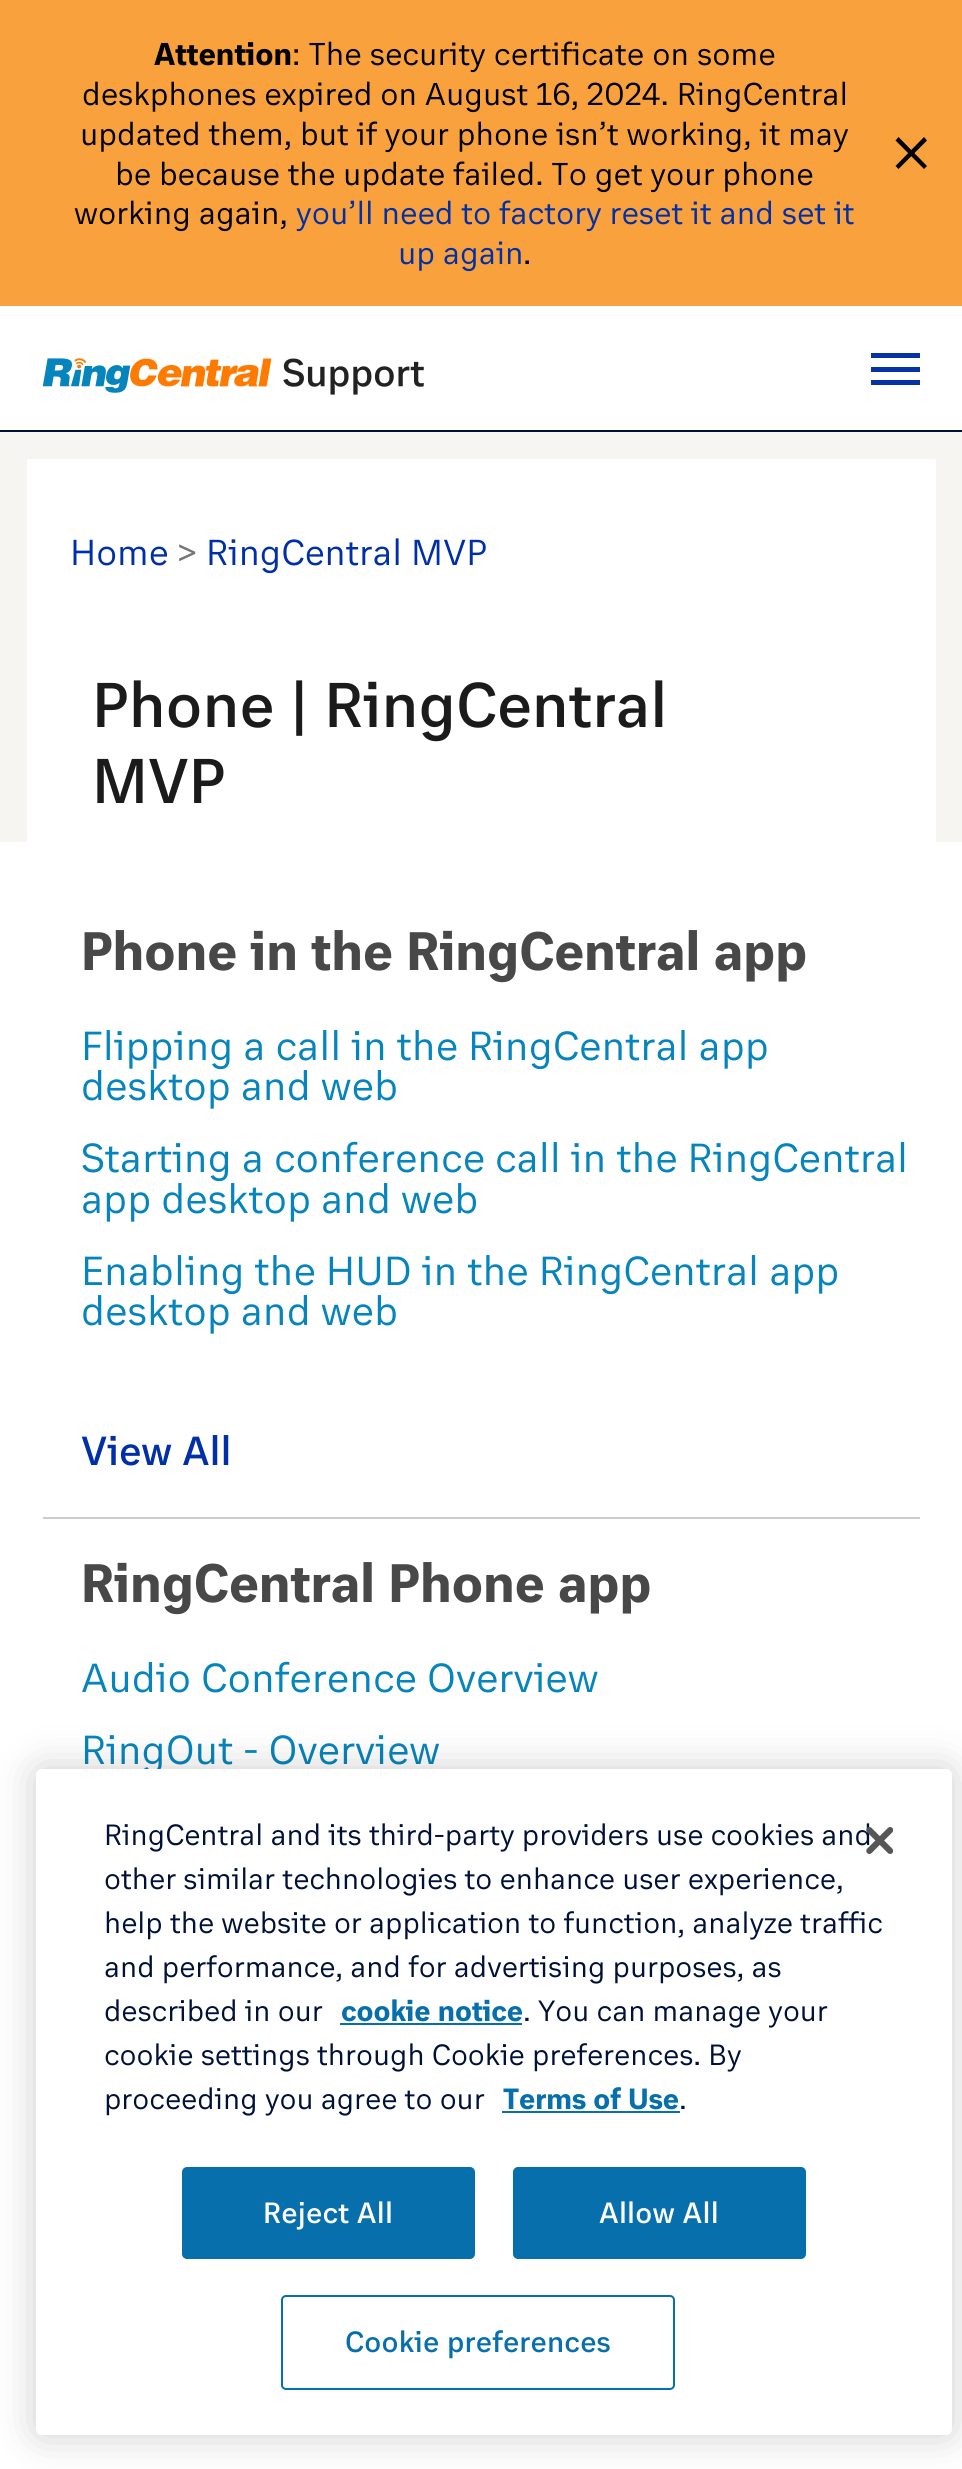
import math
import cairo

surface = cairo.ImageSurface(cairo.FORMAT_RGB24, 962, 2469)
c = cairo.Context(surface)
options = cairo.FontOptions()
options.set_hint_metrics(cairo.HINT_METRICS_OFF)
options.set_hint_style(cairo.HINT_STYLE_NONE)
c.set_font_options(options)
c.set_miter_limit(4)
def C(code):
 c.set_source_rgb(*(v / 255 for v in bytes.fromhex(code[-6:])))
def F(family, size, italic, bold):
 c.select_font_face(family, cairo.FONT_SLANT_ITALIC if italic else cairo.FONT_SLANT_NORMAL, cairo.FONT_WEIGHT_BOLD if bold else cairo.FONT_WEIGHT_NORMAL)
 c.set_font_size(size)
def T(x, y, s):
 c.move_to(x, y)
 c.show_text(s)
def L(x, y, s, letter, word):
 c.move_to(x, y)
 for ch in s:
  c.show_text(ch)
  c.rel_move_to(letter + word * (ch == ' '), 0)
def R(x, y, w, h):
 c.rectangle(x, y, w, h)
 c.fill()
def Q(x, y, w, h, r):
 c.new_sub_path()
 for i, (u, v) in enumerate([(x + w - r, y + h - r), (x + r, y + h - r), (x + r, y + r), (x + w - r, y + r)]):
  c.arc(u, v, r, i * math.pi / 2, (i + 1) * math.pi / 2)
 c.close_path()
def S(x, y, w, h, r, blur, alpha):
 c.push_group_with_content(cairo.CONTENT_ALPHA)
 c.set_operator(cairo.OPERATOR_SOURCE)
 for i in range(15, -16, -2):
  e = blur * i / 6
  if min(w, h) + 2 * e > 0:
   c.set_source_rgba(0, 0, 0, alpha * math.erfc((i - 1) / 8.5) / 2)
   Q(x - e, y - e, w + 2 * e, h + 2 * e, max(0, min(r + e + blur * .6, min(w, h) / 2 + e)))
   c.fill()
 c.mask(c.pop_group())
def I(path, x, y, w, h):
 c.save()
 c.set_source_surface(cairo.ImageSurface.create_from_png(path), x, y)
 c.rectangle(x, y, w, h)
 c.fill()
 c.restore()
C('f6f5f1')
c.paint()
C('f9a23d')
R(0,0,962,306)
F('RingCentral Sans',31.5,0,1)
C('000000')
T(154,65,'Attention')
F('RingCentral Sans',31.5,0,0)
L(292,65,': The security certificate on some',0,.25)
T(82,105,'deskphones expired on August 16, 2024. RingCentral')
T(80,145,'updated them, but if your phone isn’t working, it may')
T(115,185,'be because the update failed. To get your phone')
T(74,224,'working again,')
C('002fa7')
T(296,224,'you’ll need to factory reset it and set it')
T(398,264,'up again')
C('000000')
T(523,264,'.')
c.new_path()
c.move_to(924,137)
c.line_to(927,140.5)
c.line_to(898.5,169)
c.line_to(895.5,166)
c.close_path()
c.fill()
c.new_path()
c.move_to(895.5,140.5)
c.line_to(898.5,137)
c.line_to(927,166)
c.line_to(924,169)
c.close_path()
c.fill()
C('ffffff')
R(0,306,962,124)
I('1.png',43,358,381,37)
C('0632a6')
R(871,353,49,5)
R(871,367,49,5)
R(871,380,49,5)
C('001138')
R(0,430,962,2)
C('ffffff')
R(27,459,909,383)
F('RingCentral Sans',36,0,0)
C('002fa7')
T(70,565,'Home')
C('767676')
T(177,565,'>')
C('002fa7')
T(206,565,'RingCentral MVP')
F('RingCentral Sans Medium',63,0,0)
C('1c1b1c')
T(92,727,'Phone | RingCentral')
T(92,803,'MVP')
C('ffffff')
R(0,842,962,1627)
C('cccccc')
R(43,1517,877,2)
F('RingCentral Sans',54,0,1)
C('494849')
T(81,970,'Phone in the RingCentral app')
F('RingCentral Sans',40.5,0,0)
C('0684bd')
T(81,1060,'Flipping a call in the RingCentral app')
T(81,1100,'desktop and web')
T(81,1172,'Starting a conference call in the RingCentral')
T(81,1213,'app desktop and web')
T(81,1285,'Enabling the HUD in the RingCentral app')
T(81,1325,'desktop and web')
F('RingCentral Sans Medium',40.5,0,0)
C('002fa7')
T(81,1465,'View All')
F('RingCentral Sans',54,0,1)
C('494849')
T(81,1602,'RingCentral Phone app')
F('RingCentral Sans',40.5,0,0)
C('0684bd')
T(81,1692,'Audio Conference Overview')
T(81,1764,'RingOut - Overview')
C('000000')
S(36,1769,916,666,6,20,.2)
C('ffffff')
Q(36,1769,916,666,6)
c.fill()
F('RingCentral Sans',29.25,0,0)
C('001138')
T(104,1845,'RingCentral and its third-party providers use cookies and')
T(104,1889,'other similar technologies to enhance user experience,')
T(104,1933,'help the website or application to function, analyze traffic')
T(104,1977,'and performance, and for advertising purposes, as')
T(104,2021,'described in our')
F('RingCentral Sans',29.25,0,1)
C('066fac')
T(341,2021,'cookie notice')
R(340,2023,182,2)
F('RingCentral Sans',29.25,0,0)
C('001138')
T(523,2021,'. You can manage your')
T(104,2065,'cookie settings through Cookie preferences. By')
T(104,2109,'proceeding you agree to our')
F('RingCentral Sans',29.25,0,1)
C('066fac')
T(503,2109,'Terms of Use')
R(502,2111,178,2)
F('RingCentral Sans',29.25,0,0)
C('001138')
T(679,2109,'.')
I('2.png',866,1827,27,27)
C('066fac')
Q(183,2168,291,90,4)
c.fill_preserve()
c.stroke()
F('RingCentral Sans Medium',29.25,0,0)
C('ffffff')
L(263,2223,'Reject All',.25,0)
C('066fac')
Q(514,2168,291,90,4)
c.fill_preserve()
c.stroke()
C('ffffff')
L(599,2223,'Allow All',.25,0)
Q(282,2296,392,93,4)
C('066fac')
c.stroke()
L(345,2352,'Cookie preferences',.25,0)
surface.write_to_png('o.png')
